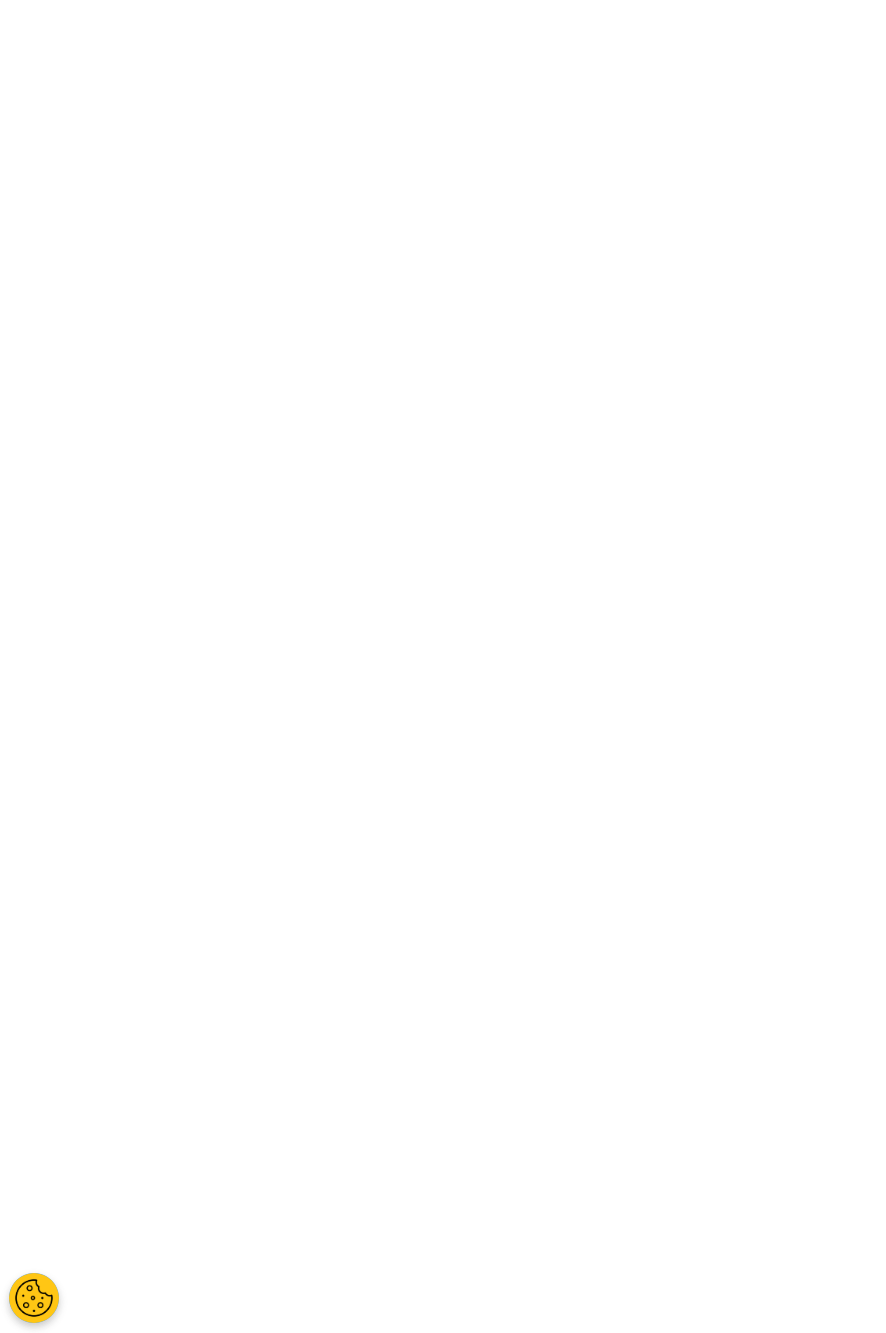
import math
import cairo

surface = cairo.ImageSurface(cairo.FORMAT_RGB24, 886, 1333)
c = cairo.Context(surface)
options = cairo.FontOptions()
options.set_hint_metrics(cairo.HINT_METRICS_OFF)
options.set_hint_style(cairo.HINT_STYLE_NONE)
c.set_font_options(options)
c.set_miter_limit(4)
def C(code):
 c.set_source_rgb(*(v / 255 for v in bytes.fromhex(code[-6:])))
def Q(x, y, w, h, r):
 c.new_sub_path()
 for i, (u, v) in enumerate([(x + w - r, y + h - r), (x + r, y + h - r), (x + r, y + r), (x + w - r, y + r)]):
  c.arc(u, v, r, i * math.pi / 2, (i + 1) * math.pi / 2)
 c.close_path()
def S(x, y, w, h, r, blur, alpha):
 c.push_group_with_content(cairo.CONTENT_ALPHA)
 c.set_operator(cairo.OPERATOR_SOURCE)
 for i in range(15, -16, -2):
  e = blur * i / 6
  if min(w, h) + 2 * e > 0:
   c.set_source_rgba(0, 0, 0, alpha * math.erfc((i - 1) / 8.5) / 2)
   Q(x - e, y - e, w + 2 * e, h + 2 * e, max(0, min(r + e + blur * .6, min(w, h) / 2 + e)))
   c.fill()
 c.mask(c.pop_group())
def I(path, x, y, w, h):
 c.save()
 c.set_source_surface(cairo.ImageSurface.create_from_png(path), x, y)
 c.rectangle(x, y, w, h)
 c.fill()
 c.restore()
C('ffffff')
c.paint()
C('000000')
S(9,1277,50,50,25,4,.2)
C('6aaae4')
c.arc(34,1298,25,0,2 * math.pi)
c.fill()
I('1.png',9,1273,50,50)
surface.write_to_png('o.png')
